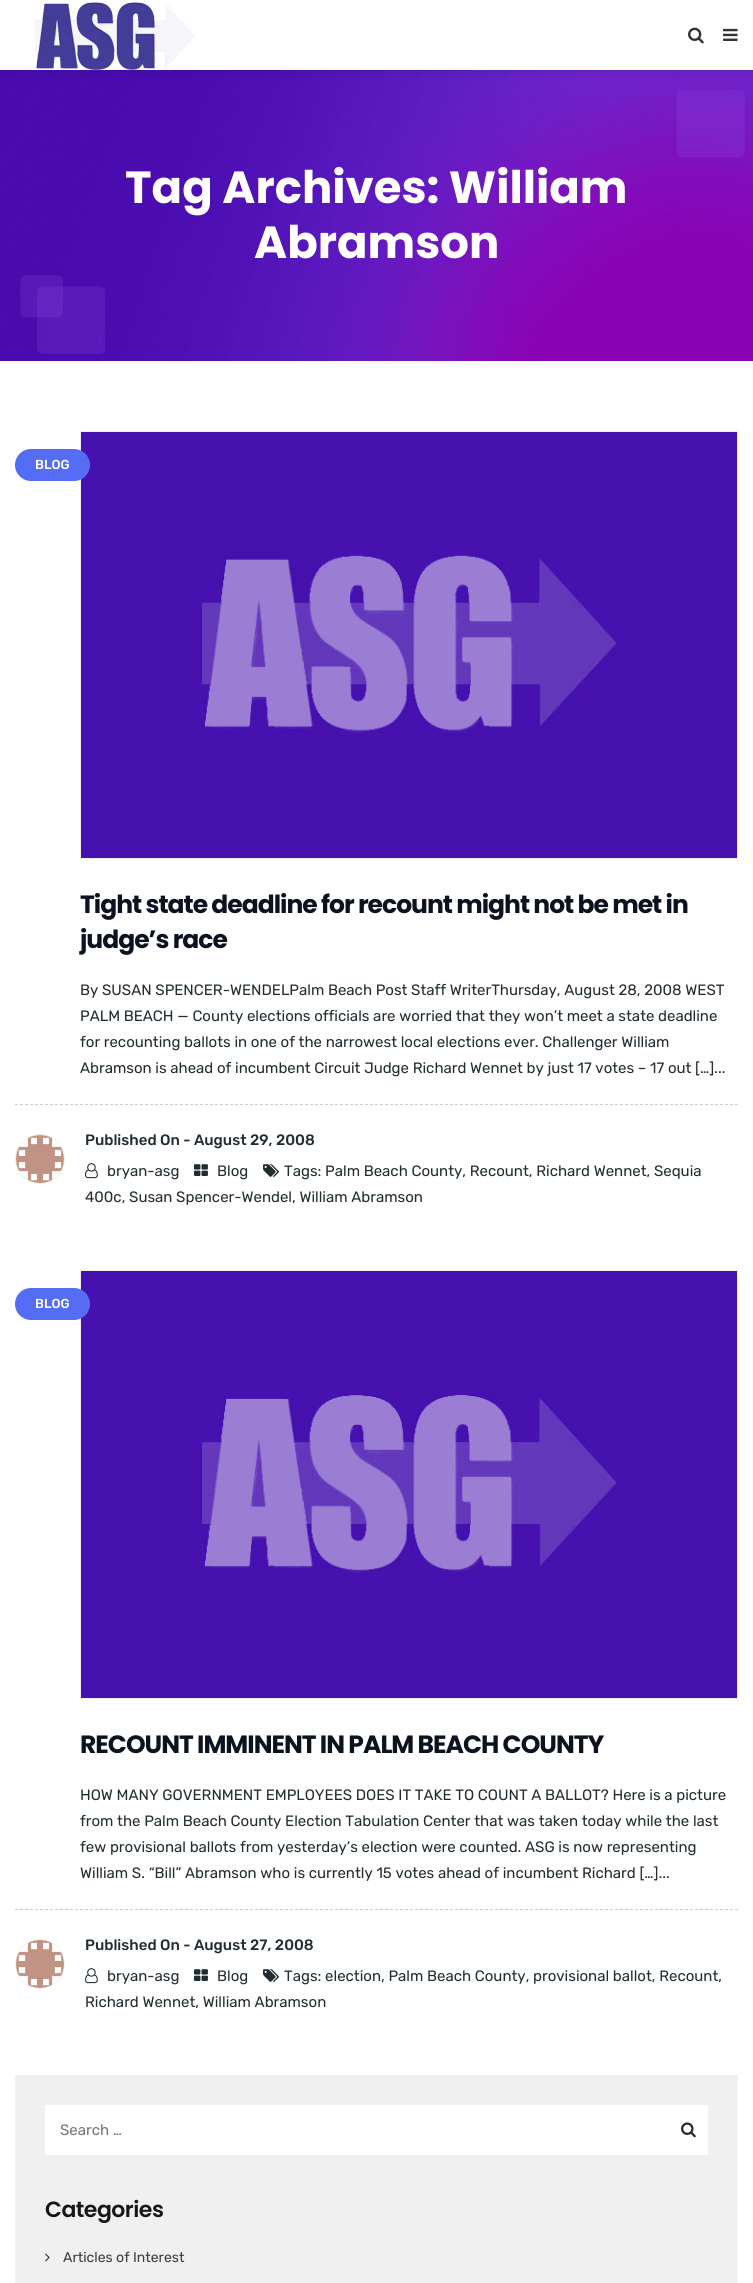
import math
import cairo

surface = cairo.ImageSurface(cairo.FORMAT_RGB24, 753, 2283)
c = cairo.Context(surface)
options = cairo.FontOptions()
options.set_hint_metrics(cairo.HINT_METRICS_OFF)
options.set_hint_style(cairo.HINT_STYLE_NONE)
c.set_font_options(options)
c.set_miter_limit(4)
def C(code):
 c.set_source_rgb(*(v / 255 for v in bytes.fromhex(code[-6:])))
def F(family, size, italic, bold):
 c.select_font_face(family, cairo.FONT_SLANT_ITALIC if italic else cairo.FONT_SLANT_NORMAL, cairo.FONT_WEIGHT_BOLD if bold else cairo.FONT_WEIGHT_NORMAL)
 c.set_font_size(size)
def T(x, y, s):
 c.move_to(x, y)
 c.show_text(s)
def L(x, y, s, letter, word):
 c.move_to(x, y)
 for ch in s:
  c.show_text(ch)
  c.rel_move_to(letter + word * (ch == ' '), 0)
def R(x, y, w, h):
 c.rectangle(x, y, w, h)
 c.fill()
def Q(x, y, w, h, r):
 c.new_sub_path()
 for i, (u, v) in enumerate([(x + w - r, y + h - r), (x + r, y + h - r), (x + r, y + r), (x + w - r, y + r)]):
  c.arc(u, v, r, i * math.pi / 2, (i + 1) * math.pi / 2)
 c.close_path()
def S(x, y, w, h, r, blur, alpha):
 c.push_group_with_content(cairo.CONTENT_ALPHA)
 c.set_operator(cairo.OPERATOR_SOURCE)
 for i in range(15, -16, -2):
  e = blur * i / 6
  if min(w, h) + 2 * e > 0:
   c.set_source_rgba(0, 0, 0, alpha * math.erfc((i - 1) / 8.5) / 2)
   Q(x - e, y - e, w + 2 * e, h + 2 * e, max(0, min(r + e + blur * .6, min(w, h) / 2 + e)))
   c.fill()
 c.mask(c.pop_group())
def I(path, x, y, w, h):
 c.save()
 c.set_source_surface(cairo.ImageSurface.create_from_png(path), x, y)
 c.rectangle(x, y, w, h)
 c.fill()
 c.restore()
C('ffffff')
c.paint()
I('4.png',0,70,753,291)
c.save()
c.rectangle(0,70,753,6)
c.clip()
C('000000')
S(0,0,753,70,0,5,.15)
c.restore()
I('1.png',35,2,160,68)
I('2.png',688,27,16,17)
I('3.png',723,28,15,13)
F('Poppins',45,0,1)
C('ffffff')
T(125,203,'Tag Archives: William')
T(254,258,'Abramson')
c.new_path()
c.move_to(15,1104.5)
c.line_to(738,1104.5)
C('cccccc')
c.set_line_width(1)
c.set_dash([3,2])
c.stroke()
c.rectangle(80.5,431.5,657,427)
C('eeefef')
c.set_dash([])
c.stroke()
I('5.png',81,432,656,426)
C('556df4')
Q(15,449,75,32,16)
c.fill()
F('Rubik Medium',13,0,0)
C('ffffff')
T(35,469,'BLOG')
F('Poppins',25,0,1)
C('0c121f')
L(80,913,'Tight state deadline for recount might not be met in',-1,0)
L(80,948,'judge’s race',-1,0)
F('Rubik',15,0,0)
C('212d31')
T(80,995,'By SUSAN SPENCER-WENDELPalm Beach Post Staff WriterThursday, August 28, 2008 WEST')
T(80,1021,'PALM BEACH — County elections officials are worried that they won’t meet a state deadline')
T(80,1047,'for recounting ballots in one of the narrowest local elections ever. Challenger William')
T(80,1073,'Abramson is ahead of incumbent Circuit Judge Richard Wennet by just 17 votes – 17 out […]...')
c.new_path()
c.arc(40,1159,24.5,0,2 * math.pi)
C('eeefef')
c.stroke()
I('6.png',16,1135,48,48)
F('Rubik Medium',15,0,0)
C('212d31')
T(85,1145,'Published On - August 29, 2008')
I('7.png',263,1164,16,13)
F('Rubik',15,0,0)
T(284,1176,'Tags: Palm Beach County, Recount, Richard Wennet, Sequia')
T(85,1202,'400c, Susan Spencer-Wendel, William Abramson')
I('8.png',85,1163,13,16)
T(107,1176,'bryan-asg')
I('9.png',194,1164,14,12)
T(217,1176,'Blog')
c.new_path()
c.move_to(15,1909.5)
c.line_to(738,1909.5)
C('cccccc')
c.set_dash([3,2])
c.stroke()
c.rectangle(80.5,1270.5,657,428)
C('eeefef')
c.set_dash([])
c.stroke()
I('10.png',81,1271,656,427)
C('556df4')
Q(15,1288,75,32,16)
c.fill()
F('Rubik Medium',13,0,0)
C('ffffff')
T(35,1308,'BLOG')
F('Poppins',25,0,1)
C('0c121f')
L(80,1753,'RECOUNT IMMINENT IN PALM BEACH COUNTY',-1,0)
F('Rubik',15,0,0)
C('212d31')
T(80,1800,'HOW MANY GOVERNMENT EMPLOYEES DOES IT TAKE TO COUNT A BALLOT? Here is a picture')
T(80,1826,'from the Palm Beach County Election Tabulation Center that was taken today while the last')
T(80,1852,'few provisional ballots from yesterday’s election were counted. ASG is now representing')
T(80,1878,'William S. “Bill” Abramson who is currently 15 votes ahead of incumbent Richard […]...')
c.new_path()
c.arc(40,1964,24.5,0,2 * math.pi)
C('eeefef')
c.stroke()
I('6.png',16,1940,48,48)
F('Rubik Medium',15,0,0)
C('212d31')
T(85,1950,'Published On - August 27, 2008')
I('7.png',263,1969,16,13)
F('Rubik',15,0,0)
T(284,1981,'Tags: election, Palm Beach County, provisional ballot, Recount,')
T(85,2007,'Richard Wennet, William Abramson')
I('8.png',85,1968,13,16)
T(107,1981,'bryan-asg')
I('9.png',194,1969,14,12)
T(217,1981,'Blog')
C('f0f0f0')
R(15,2075,723,208)
C('ffffff')
R(45,2105,663,50)
C('757575')
T(60,2135,'Search …')
I('11.png',681,2122,15,16)
F('Poppins SemiBold',22,0,0)
C('181616')
L(45,2217,'Categories',-.5,0)
I('12.png',45,2253,5,9)
F('Rubik',14,0,0)
C('3c3c3c')
T(63,2262,'Articles of Interest')
surface.write_to_png('o.png')
